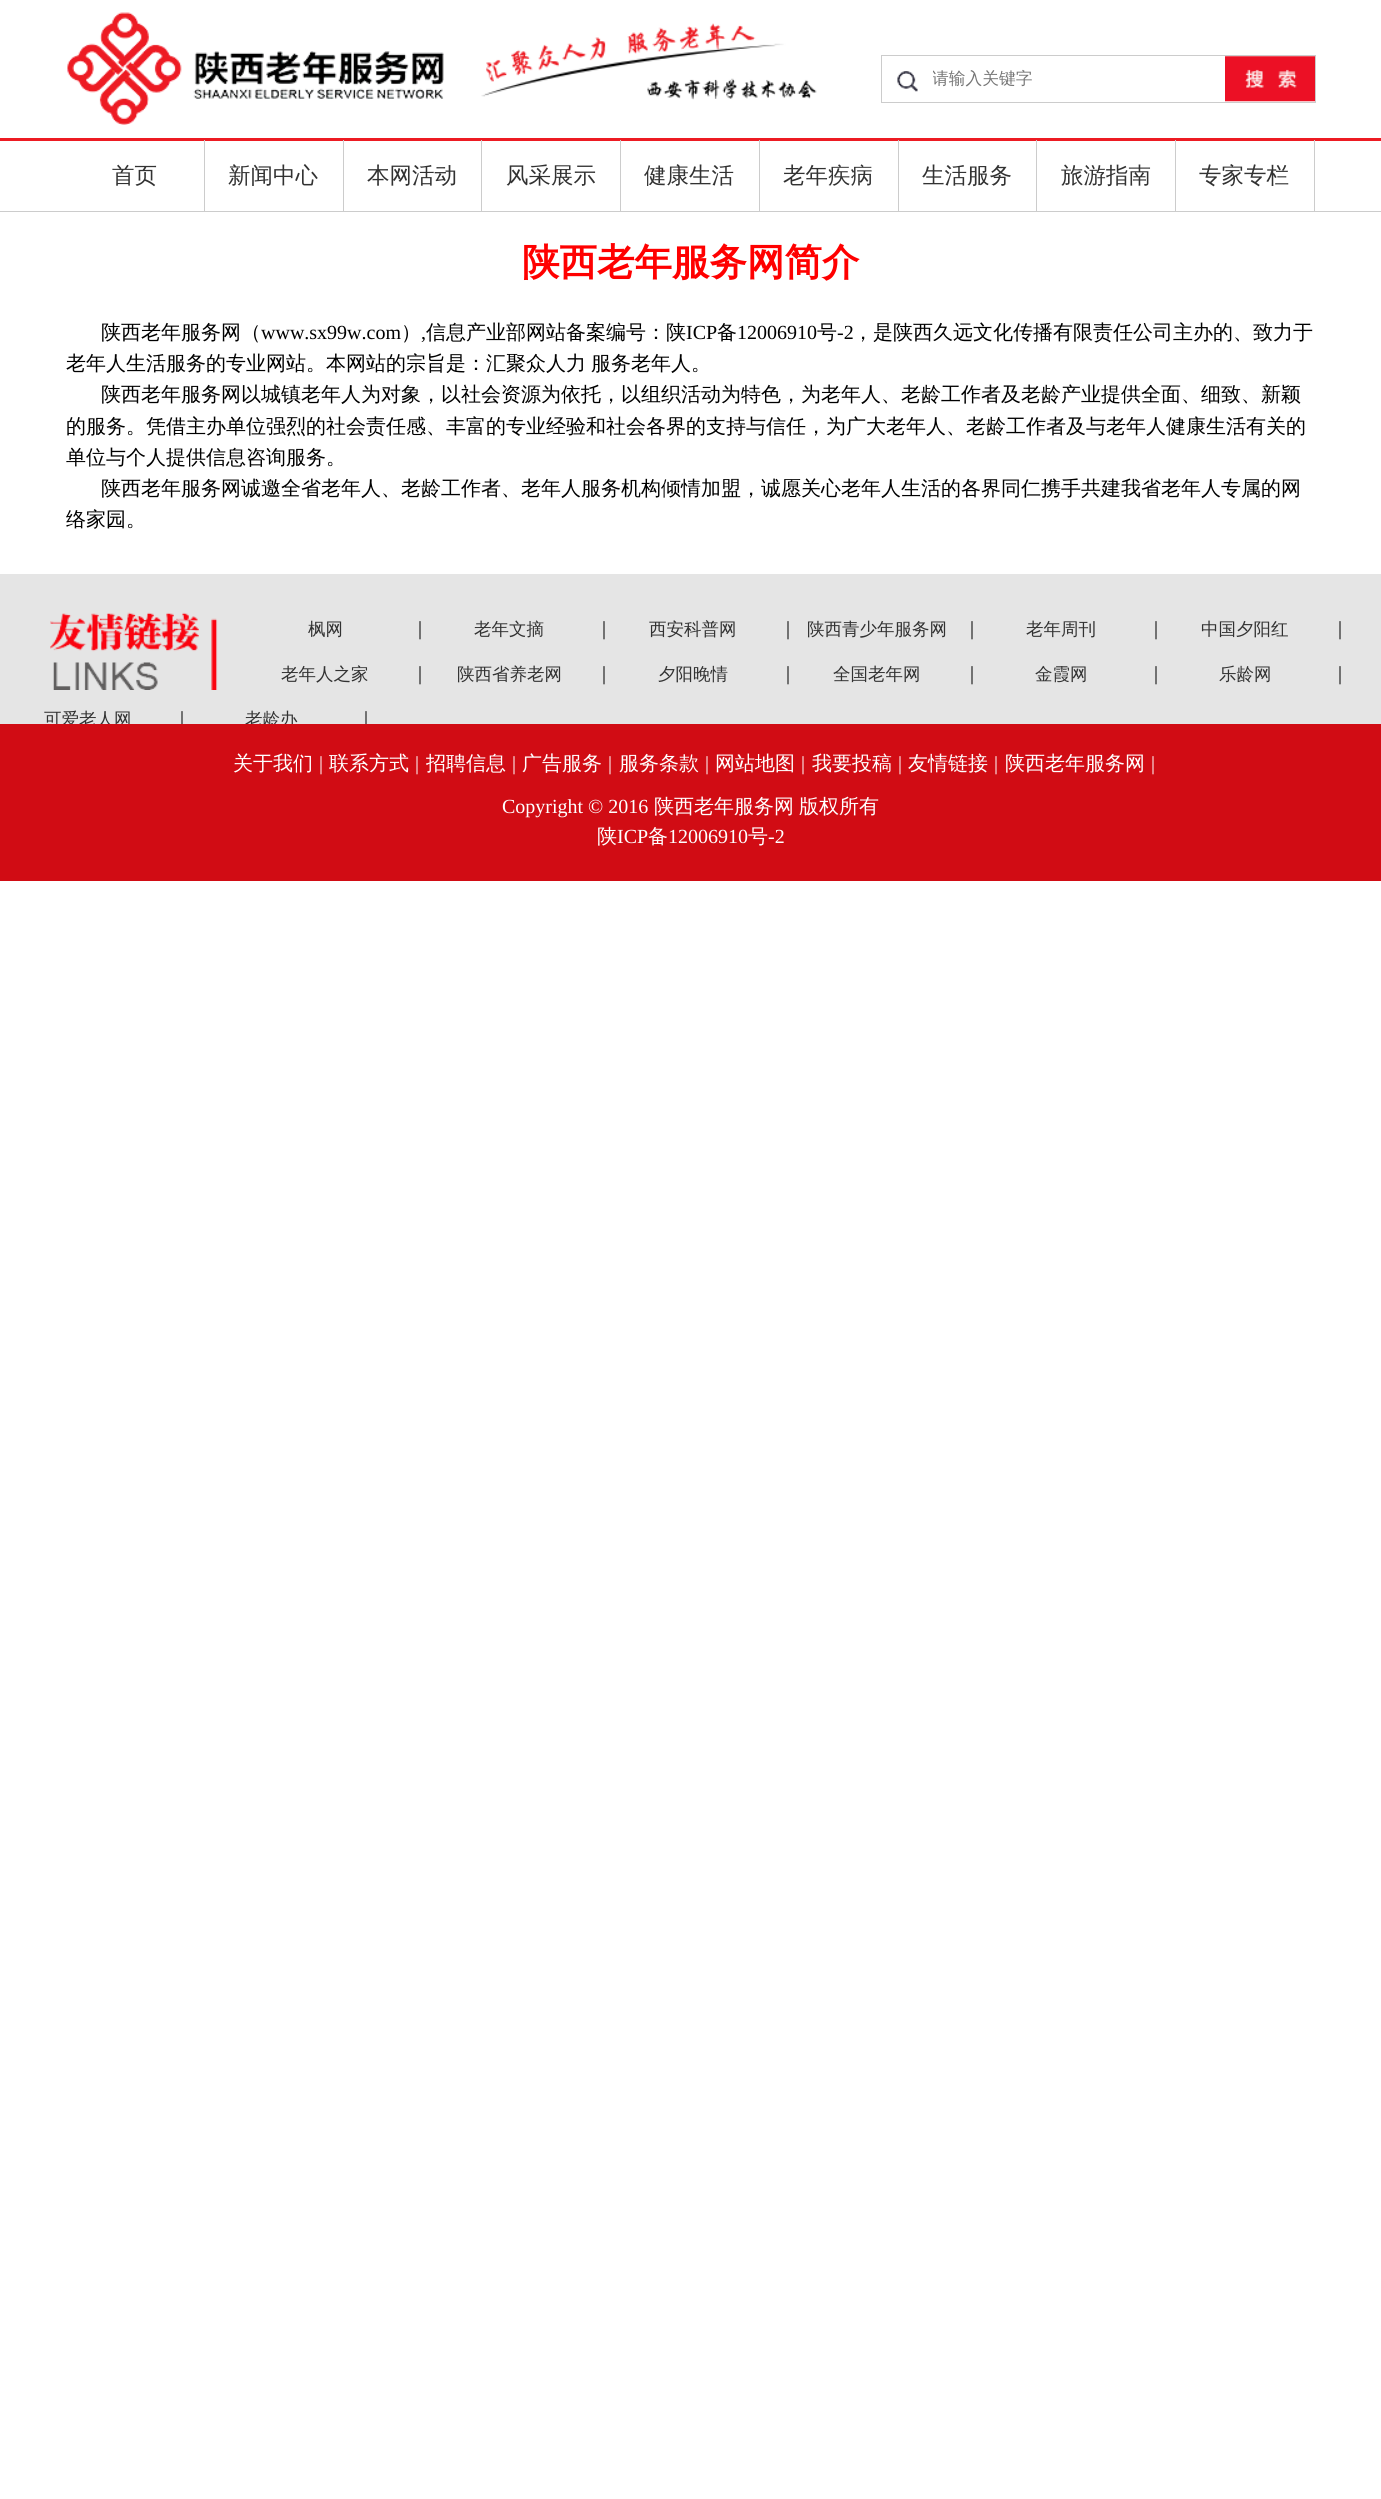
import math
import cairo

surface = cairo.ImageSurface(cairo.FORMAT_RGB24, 1381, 2499)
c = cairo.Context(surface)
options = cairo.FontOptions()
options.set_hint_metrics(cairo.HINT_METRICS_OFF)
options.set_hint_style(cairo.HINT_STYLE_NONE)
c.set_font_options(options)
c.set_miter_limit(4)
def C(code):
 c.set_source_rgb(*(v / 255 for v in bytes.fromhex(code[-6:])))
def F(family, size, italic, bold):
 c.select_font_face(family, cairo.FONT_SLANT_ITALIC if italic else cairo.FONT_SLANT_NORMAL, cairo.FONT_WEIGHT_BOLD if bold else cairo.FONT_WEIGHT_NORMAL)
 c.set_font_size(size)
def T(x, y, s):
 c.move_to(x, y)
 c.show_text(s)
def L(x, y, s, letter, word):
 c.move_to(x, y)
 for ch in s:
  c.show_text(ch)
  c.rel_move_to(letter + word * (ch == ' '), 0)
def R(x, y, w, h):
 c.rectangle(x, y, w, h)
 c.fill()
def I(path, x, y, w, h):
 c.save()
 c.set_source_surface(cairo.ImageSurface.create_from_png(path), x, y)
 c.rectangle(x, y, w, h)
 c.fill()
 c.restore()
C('ffffff')
c.paint()
C('ed1b23')
R(0,138,1381,3)
I('1.png',67,12,377,113)
I('2.png',481,23,336,77)
c.rectangle(881.5,55.5,434,47)
C('cccccc')
c.set_line_width(1)
c.stroke()
I('3.png',897,71,21,21)
c.save()
c.rectangle(933,69,287,22)
c.clip()
F('WenQuanYi Zen Hei Medium',16.75,0,0)
C('757575')
T(932,84,'请输入关键字')
c.restore()
I('4.png',1225,56,90,46)
R(0,211,1381,1)
R(204,140,1,71)
F('WenQuanYi Zen Hei Medium',22.5,0,0)
C('323232')
T(112,183,'首页')
C('cccccc')
R(343,140,1,71)
C('323232')
T(228,183,'新闻中心')
C('cccccc')
R(481,140,1,71)
C('323232')
T(367,183,'本网活动')
C('cccccc')
R(620,140,1,71)
C('323232')
T(506,183,'风采展示')
C('cccccc')
R(759,140,1,71)
C('323232')
T(644,183,'健康生活')
C('cccccc')
R(898,140,1,71)
C('323232')
T(783,183,'老年疾病')
C('cccccc')
R(1036,140,1,71)
C('323232')
T(922,183,'生活服务')
C('cccccc')
R(1175,140,1,71)
C('323232')
T(1061,183,'旅游指南')
C('cccccc')
R(1314,140,1,71)
C('323232')
T(1199,183,'专家专栏')
F('WenQuanYi Zen Hei',37.5,0,1)
C('ff0000')
T(522,275,'陕西老年服务网简介')
F('WenQuanYi Zen Hei Medium',20,0,0)
C('000000')
T(101,339,'陕西老年服务网（')
F('Liberation Serif',20,0,0)
T(261,339,'www.sx99w.com')
F('WenQuanYi Zen Hei Medium',20,0,0)
T(401,339,'）')
F('Liberation Serif',20,0,0)
T(421,339,',')
F('WenQuanYi Zen Hei Medium',20,0,0)
T(426,339,'信息产业部网站备案编号：陕')
F('Liberation Serif',20,0,0)
T(686,339,'ICP')
F('WenQuanYi Zen Hei Medium',20,0,0)
T(717,339,'备')
F('Liberation Serif',20,0,0)
T(737,339,'12006910')
F('WenQuanYi Zen Hei Medium',20,0,0)
T(817,339,'号')
F('Liberation Serif',20,0,0)
T(837,339,'-2')
F('WenQuanYi Zen Hei Medium',20,0,0)
T(853,339,'，是陕西久远文化传播有限责任公司主办的、致力于')
L(66,370,'老年人生活服务的专业网站。本网站的宗旨是：汇聚众人力 服务老年人。',0,-1)
T(101,401,'陕西老年服务网以城镇老年人为对象，以社会资源为依托，以组织活动为特色，为老年人、老龄工作者及老龄产业提供全面、细致、新颖')
T(66,433,'的服务。凭借主办单位强烈的社会责任感、丰富的专业经验和社会各界的支持与信任，为广大老年人、老龄工作者及与老年人健康生活有关的')
T(66,464,'单位与个人提供信息咨询服务。')
T(101,495,'陕西老年服务网诚邀全省老年人、老龄工作者、老年人服务机构倾情加盟，诚愿关心老年人生活的各界同仁携手共建我省老年人专属的网')
T(66,526,'络家园。')
C('e5e5e5')
R(0,574,1381,150)
I('5.png',50,612,168,78)
F('WenQuanYi Zen Hei Medium',17.5,0,0)
C('323232')
T(308,635,'枫网')
F('Liberation Serif',20,0,0)
C('000000')
T(418,635,'|')
F('WenQuanYi Zen Hei Medium',17.5,0,0)
C('323232')
T(474,635,'老年文摘')
F('Liberation Serif',20,0,0)
C('000000')
T(602,635,'|')
F('WenQuanYi Zen Hei Medium',17.5,0,0)
C('323232')
T(649,635,'西安科普网')
F('Liberation Serif',20,0,0)
C('000000')
T(786,635,'|')
F('WenQuanYi Zen Hei Medium',17.5,0,0)
C('323232')
T(807,635,'陕西青少年服务网')
F('Liberation Serif',20,0,0)
C('000000')
T(970,635,'|')
F('WenQuanYi Zen Hei Medium',17.5,0,0)
C('323232')
T(1026,635,'老年周刊')
F('Liberation Serif',20,0,0)
C('000000')
T(1154,635,'|')
F('WenQuanYi Zen Hei Medium',17.5,0,0)
C('323232')
T(1201,635,'中国夕阳红')
F('Liberation Serif',20,0,0)
C('000000')
T(1338,635,'|')
F('WenQuanYi Zen Hei Medium',17.5,0,0)
C('323232')
T(281,680,'老年人之家')
F('Liberation Serif',20,0,0)
C('000000')
T(418,680,'|')
F('WenQuanYi Zen Hei Medium',17.5,0,0)
C('323232')
T(457,680,'陕西省养老网')
F('Liberation Serif',20,0,0)
C('000000')
T(602,680,'|')
F('WenQuanYi Zen Hei Medium',17.5,0,0)
C('323232')
T(658,680,'夕阳晚情')
F('Liberation Serif',20,0,0)
C('000000')
T(786,680,'|')
F('WenQuanYi Zen Hei Medium',17.5,0,0)
C('323232')
T(833,680,'全国老年网')
F('Liberation Serif',20,0,0)
C('000000')
T(970,680,'|')
F('WenQuanYi Zen Hei Medium',17.5,0,0)
C('323232')
T(1035,680,'金霞网')
F('Liberation Serif',20,0,0)
C('000000')
T(1154,680,'|')
F('WenQuanYi Zen Hei Medium',17.5,0,0)
C('323232')
T(1219,680,'乐龄网')
F('Liberation Serif',20,0,0)
C('000000')
T(1338,680,'|')
F('WenQuanYi Zen Hei Medium',17.5,0,0)
C('323232')
T(44,725,'可爱老人网')
F('Liberation Serif',20,0,0)
C('000000')
T(180,725,'|')
F('WenQuanYi Zen Hei Medium',17.5,0,0)
C('323232')
T(245,725,'老龄办')
F('Liberation Serif',20,0,0)
C('000000')
T(364,725,'|')
C('d10c14')
R(0,724,1381,157)
F('WenQuanYi Zen Hei Medium',20,0,0)
C('ffffff')
T(233,770,'关于我们')
F('Liberation Serif',20,0,0)
T(319,770,'|')
F('WenQuanYi Zen Hei Medium',20,0,0)
T(329,770,'联系方式')
F('Liberation Serif',20,0,0)
T(415,770,'|')
F('WenQuanYi Zen Hei Medium',20,0,0)
T(426,770,'招聘信息')
F('Liberation Serif',20,0,0)
T(512,770,'|')
F('WenQuanYi Zen Hei Medium',20,0,0)
T(522,770,'广告服务')
F('Liberation Serif',20,0,0)
T(608,770,'|')
F('WenQuanYi Zen Hei Medium',20,0,0)
T(619,770,'服务条款')
F('Liberation Serif',20,0,0)
T(705,770,'|')
F('WenQuanYi Zen Hei Medium',20,0,0)
T(715,770,'网站地图')
F('Liberation Serif',20,0,0)
T(801,770,'|')
F('WenQuanYi Zen Hei Medium',20,0,0)
T(812,770,'我要投稿')
F('Liberation Serif',20,0,0)
T(898,770,'|')
F('WenQuanYi Zen Hei Medium',20,0,0)
T(908,770,'友情链接')
F('Liberation Serif',20,0,0)
T(994,770,'|')
F('WenQuanYi Zen Hei Medium',20,0,0)
T(1005,770,'陕西老年服务网')
F('Liberation Serif',20,0,0)
T(1151,770,'|')
T(502,813,'Copyright © 2016')
F('WenQuanYi Zen Hei Medium',20,0,0)
T(654,813,'陕西老年服务网')
T(799,813,'版权所有')
T(597,843,'陕')
F('Liberation Serif',20,0,0)
T(617,843,'ICP')
F('WenQuanYi Zen Hei Medium',20,0,0)
T(648,843,'备')
F('Liberation Serif',20,0,0)
T(668,843,'12006910')
F('WenQuanYi Zen Hei Medium',20,0,0)
T(748,843,'号')
F('Liberation Serif',20,0,0)
T(768,843,'-2')
surface.write_to_png('o.png')
